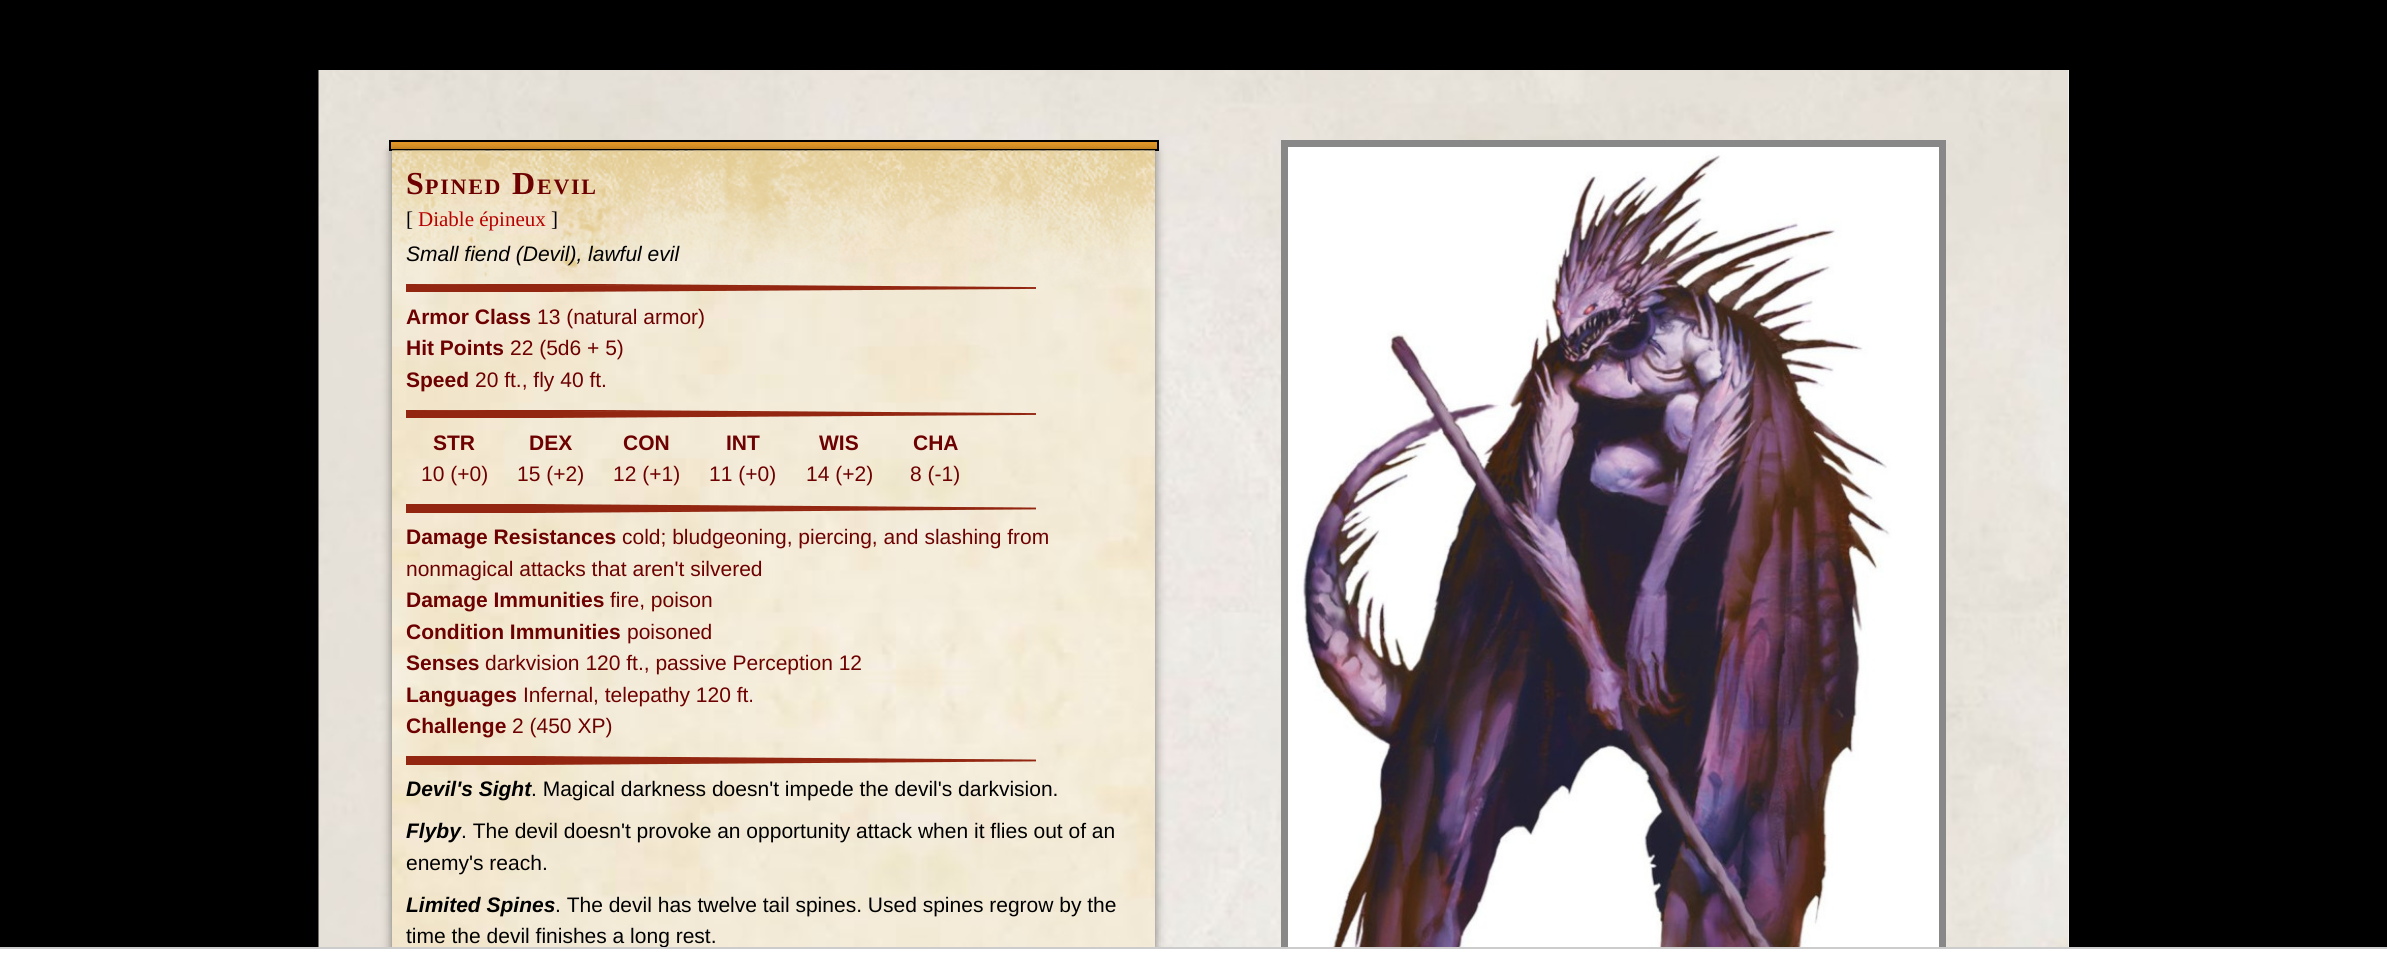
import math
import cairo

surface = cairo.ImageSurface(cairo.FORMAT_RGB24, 2387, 966)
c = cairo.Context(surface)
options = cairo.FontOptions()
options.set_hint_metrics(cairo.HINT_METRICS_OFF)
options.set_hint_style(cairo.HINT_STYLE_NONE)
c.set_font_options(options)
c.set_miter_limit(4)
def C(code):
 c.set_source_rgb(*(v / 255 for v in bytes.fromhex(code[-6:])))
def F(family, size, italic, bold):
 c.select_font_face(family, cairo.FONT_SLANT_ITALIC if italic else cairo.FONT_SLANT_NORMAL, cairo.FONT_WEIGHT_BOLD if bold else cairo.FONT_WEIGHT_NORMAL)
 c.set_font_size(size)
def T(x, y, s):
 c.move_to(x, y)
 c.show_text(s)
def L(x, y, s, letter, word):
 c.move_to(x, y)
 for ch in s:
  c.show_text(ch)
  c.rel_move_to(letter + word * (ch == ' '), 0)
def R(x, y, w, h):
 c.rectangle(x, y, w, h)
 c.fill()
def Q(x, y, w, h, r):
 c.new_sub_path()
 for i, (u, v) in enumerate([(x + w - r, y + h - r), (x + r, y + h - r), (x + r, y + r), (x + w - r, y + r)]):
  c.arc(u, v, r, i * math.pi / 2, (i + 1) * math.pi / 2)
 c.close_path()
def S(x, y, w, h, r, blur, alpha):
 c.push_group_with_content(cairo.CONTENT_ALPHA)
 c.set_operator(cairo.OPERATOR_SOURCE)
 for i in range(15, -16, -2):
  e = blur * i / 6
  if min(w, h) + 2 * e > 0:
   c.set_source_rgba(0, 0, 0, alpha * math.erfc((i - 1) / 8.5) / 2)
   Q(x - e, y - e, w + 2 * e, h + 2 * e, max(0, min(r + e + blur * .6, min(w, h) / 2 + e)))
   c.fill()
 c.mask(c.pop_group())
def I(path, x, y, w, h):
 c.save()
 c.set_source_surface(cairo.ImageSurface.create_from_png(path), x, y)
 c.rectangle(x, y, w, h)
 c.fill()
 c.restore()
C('000000')
c.paint()
C('ffffff')
R(2068,70,1,877)
I('1.png',318,70,1751,877)
C('e69a28')
c.rectangle(390,141,768,9)
c.fill_preserve()
C('000000')
c.stroke()
C('000000')
S(392,151,763,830,0,5,.5)
I('2.png',392,150,763,797)
F('Liberation Serif',32,0,1)
C('6d0000')
L(406,194,'S',1.75,0)
F('Liberation Serif',22,0,1)
L(425,194,'PINED',1.75,0)
F('Liberation Serif',32,0,1)
L(512,194,'D',1.75,0)
F('Liberation Serif',22,0,1)
L(537,194,'EVIL',1.75,0)
F('Liberation Serif',21,0,0)
C('000000')
T(406,226,'[')
C('b80000')
T(418,226,'Diable épineux')
C('000000')
T(551,226,']')
F('Liberation Sans',21,1,0)
T(406,261,'Small fiend (Devil), lawful evil')
C('922610')
c.new_path()
c.move_to(406,284)
c.line_to(1036,288)
c.line_to(406,292)
c.fill()
c.save()
c.rectangle(406,284,735,8)
c.clip()
c.new_path()
c.move_to(406,283.5)
c.line_to(1036,288)
c.line_to(406,292)
c.set_line_width(1.8)
c.stroke()
c.restore()
F('Liberation Sans',21,0,1)
C('6d0000')
T(406,324,'Armor Class')
F('Liberation Sans',21,0,0)
T(537,324,'13 (natural armor)')
F('Liberation Sans',21,0,1)
T(406,355,'Hit Points')
F('Liberation Sans',21,0,0)
T(510,355,'22 (5d6 + 5)')
F('Liberation Sans',21,0,1)
T(406,387,'Speed')
F('Liberation Sans',21,0,0)
T(475,387,'20 ft., fly 40 ft.')
C('922610')
c.new_path()
c.move_to(406,410)
c.line_to(1036,414)
c.line_to(406,418)
c.fill()
c.save()
c.rectangle(406,410,735,8)
c.clip()
c.new_path()
c.move_to(406,409.5)
c.line_to(1036,414)
c.line_to(406,418)
c.set_line_width(1.8)
c.stroke()
c.restore()
F('Liberation Sans',21,0,1)
C('6d0000')
T(433,450,'STR')
F('Liberation Sans',21,0,0)
T(421,481,'10 (+0)')
F('Liberation Sans',21,0,1)
T(529,450,'DEX')
F('Liberation Sans',21,0,0)
T(517,481,'15 (+2)')
F('Liberation Sans',21,0,1)
T(623,450,'CON')
F('Liberation Sans',21,0,0)
T(613,481,'12 (+1)')
F('Liberation Sans',21,0,1)
T(726,450,'INT')
F('Liberation Sans',21,0,0)
T(709,481,'11 (+0)')
F('Liberation Sans',21,0,1)
T(819,450,'WIS')
F('Liberation Sans',21,0,0)
T(806,481,'14 (+2)')
F('Liberation Sans',21,0,1)
T(913,450,'CHA')
F('Liberation Sans',21,0,0)
T(910,481,'8 (-1)')
C('922610')
c.new_path()
c.move_to(406,504)
c.line_to(1036,508)
c.line_to(406,513)
c.fill()
c.save()
c.rectangle(406,504,735,9)
c.clip()
c.new_path()
c.move_to(406,504)
c.line_to(1036,508.5)
c.line_to(406,513)
c.set_line_width(1.8)
c.stroke()
c.restore()
F('Liberation Sans',21,0,1)
C('6d0000')
T(406,544,'Damage Resistances')
F('Liberation Sans',21,0,0)
T(622,544,'cold; bludgeoning, piercing, and slashing from')
T(406,576,'nonmagical attacks that aren\'t silvered')
F('Liberation Sans',21,0,1)
T(406,607,'Damage Immunities')
F('Liberation Sans',21,0,0)
T(610,607,'fire, poison')
F('Liberation Sans',21,0,1)
T(406,639,'Condition Immunities')
F('Liberation Sans',21,0,0)
T(627,639,'poisoned')
F('Liberation Sans',21,0,1)
T(406,670,'Senses')
F('Liberation Sans',21,0,0)
T(485,670,'darkvision 120 ft., passive Perception 12')
F('Liberation Sans',21,0,1)
T(406,702,'Languages')
F('Liberation Sans',21,0,0)
T(523,702,'Infernal, telepathy 120 ft.')
F('Liberation Sans',21,0,1)
T(406,733,'Challenge')
F('Liberation Sans',21,0,0)
T(512,733,'2 (450 XP)')
C('922610')
c.new_path()
c.move_to(406,756)
c.line_to(1036,760)
c.line_to(406,765)
c.fill()
c.save()
c.rectangle(406,756,735,9)
c.clip()
c.new_path()
c.move_to(406,756)
c.line_to(1036,760.5)
c.line_to(406,765)
c.set_line_width(1.8)
c.stroke()
c.restore()
F('Liberation Sans',21,1,1)
C('000000')
T(406,796,'Devil\'s Sight')
F('Liberation Sans',21,0,0)
T(531,796,'. Magical darkness doesn\'t impede the devil\'s darkvision.')
F('Liberation Sans',21,1,1)
T(406,838,'Flyby')
F('Liberation Sans',21,0,0)
T(461,838,'. The devil doesn\'t provoke an opportunity attack when it flies out of an')
T(406,870,'enemy\'s reach.')
F('Liberation Sans',21,1,1)
T(406,912,'Limited Spines')
F('Liberation Sans',21,0,0)
T(555,912,'. The devil has twelve tail spines. Used spines regrow by the')
T(406,943,'time the devil finishes a long rest.')
c.rectangle(1284.5,143.5,658,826)
C('888888')
c.set_line_width(7)
c.stroke()
I('3.png',1288,147,651,800)
C('ffffff')
R(0,949,2387,17)
C('cccccc')
R(0,947,2387,2)
surface.write_to_png('o.png')
